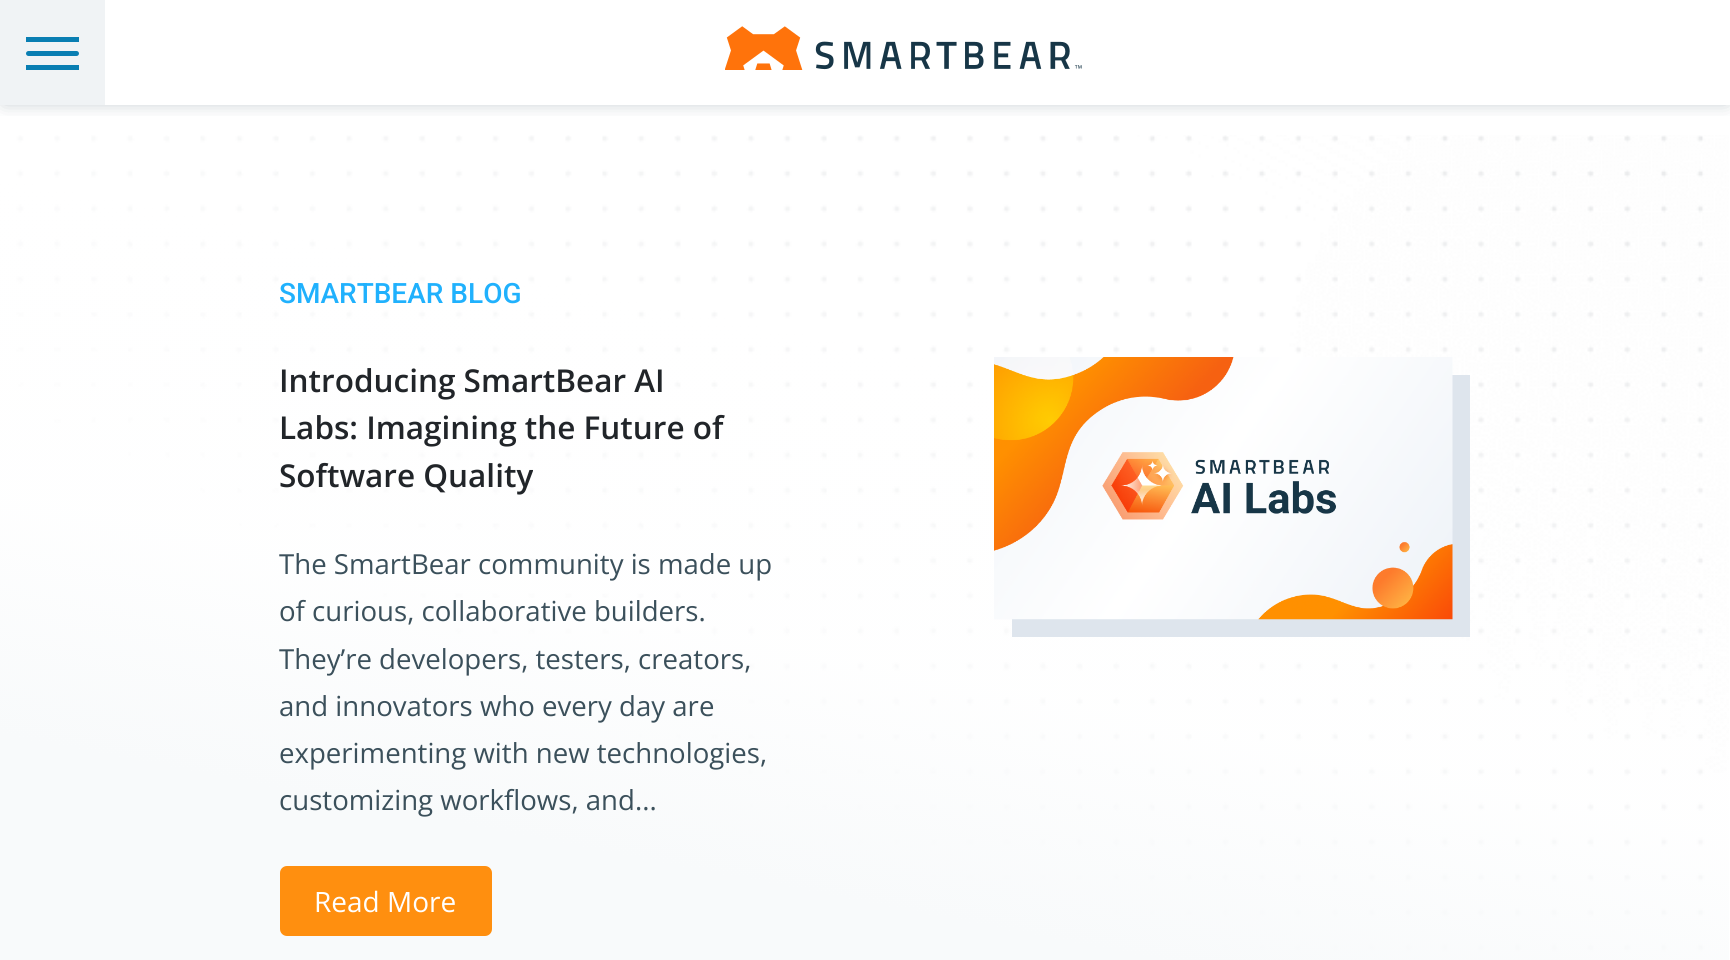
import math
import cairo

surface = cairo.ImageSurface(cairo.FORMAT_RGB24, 1730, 960)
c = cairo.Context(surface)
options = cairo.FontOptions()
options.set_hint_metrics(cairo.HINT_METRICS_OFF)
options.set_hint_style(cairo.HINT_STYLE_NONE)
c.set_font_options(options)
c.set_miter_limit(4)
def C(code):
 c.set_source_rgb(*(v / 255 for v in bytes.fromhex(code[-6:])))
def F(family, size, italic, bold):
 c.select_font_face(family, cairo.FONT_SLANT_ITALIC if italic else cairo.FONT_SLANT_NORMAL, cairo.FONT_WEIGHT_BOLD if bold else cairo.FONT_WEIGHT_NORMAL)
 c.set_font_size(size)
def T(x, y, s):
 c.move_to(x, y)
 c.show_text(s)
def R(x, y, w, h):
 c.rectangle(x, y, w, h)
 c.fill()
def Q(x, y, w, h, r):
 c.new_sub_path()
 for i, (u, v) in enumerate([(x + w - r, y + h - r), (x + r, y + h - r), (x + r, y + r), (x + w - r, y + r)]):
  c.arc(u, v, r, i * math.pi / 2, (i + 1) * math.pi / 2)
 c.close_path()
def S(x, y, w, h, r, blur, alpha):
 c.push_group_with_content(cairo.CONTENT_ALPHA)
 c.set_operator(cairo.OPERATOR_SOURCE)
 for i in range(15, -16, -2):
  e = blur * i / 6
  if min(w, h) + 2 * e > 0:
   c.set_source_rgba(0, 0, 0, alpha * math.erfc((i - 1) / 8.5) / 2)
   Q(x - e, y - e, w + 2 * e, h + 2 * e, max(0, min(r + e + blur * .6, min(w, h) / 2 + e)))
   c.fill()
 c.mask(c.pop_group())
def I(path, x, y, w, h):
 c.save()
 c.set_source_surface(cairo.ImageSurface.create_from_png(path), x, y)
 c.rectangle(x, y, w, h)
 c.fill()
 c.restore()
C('ffffff')
c.paint()
c.save()
c.rectangle(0,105,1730,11)
c.clip()
C('173647')
S(4,4,1723,98,0,9,.3)
c.restore()
C('f0f3f5')
R(0,0,105,105)
C('097eb2')
R(26,37,53,5)
Q(26,51,53,5,2.5)
c.fill()
R(26,65,53,5)
I('1.png',725,26,357,44)
I('2.png',0,135,1729,825)
F('Roboto Medium',28,0,0)
C('20b1fd')
T(279,303,'SMARTBEAR BLOG')
F('Open Sans SemiBold',31.5,0,0)
C('212529')
T(279,392,'Introducing SmartBear AI')
T(279,439,'Labs: Imagining the Future of')
T(279,487,'Software Quality')
F('Open Sans',27.6,0,0)
C('3b505b')
T(279,574,'The SmartBear community is made up')
T(279,621,'of curious, collaborative builders.')
T(279,669,'They’re developers, testers, creators,')
T(279,716,'and innovators who every day are')
T(279,763,'experimenting with new technologies,')
T(279,810,'customizing workflows, and...')
C('ff8f0f')
Q(281,867,210,68,6)
c.fill_preserve()
c.stroke()
F('Open Sans',28,0,0)
C('ffffff')
T(314,912,'Read More')
C('dee5ed')
R(1012,375,458,262)
I('3.png',994,357,459,263)
surface.write_to_png('o.png')
